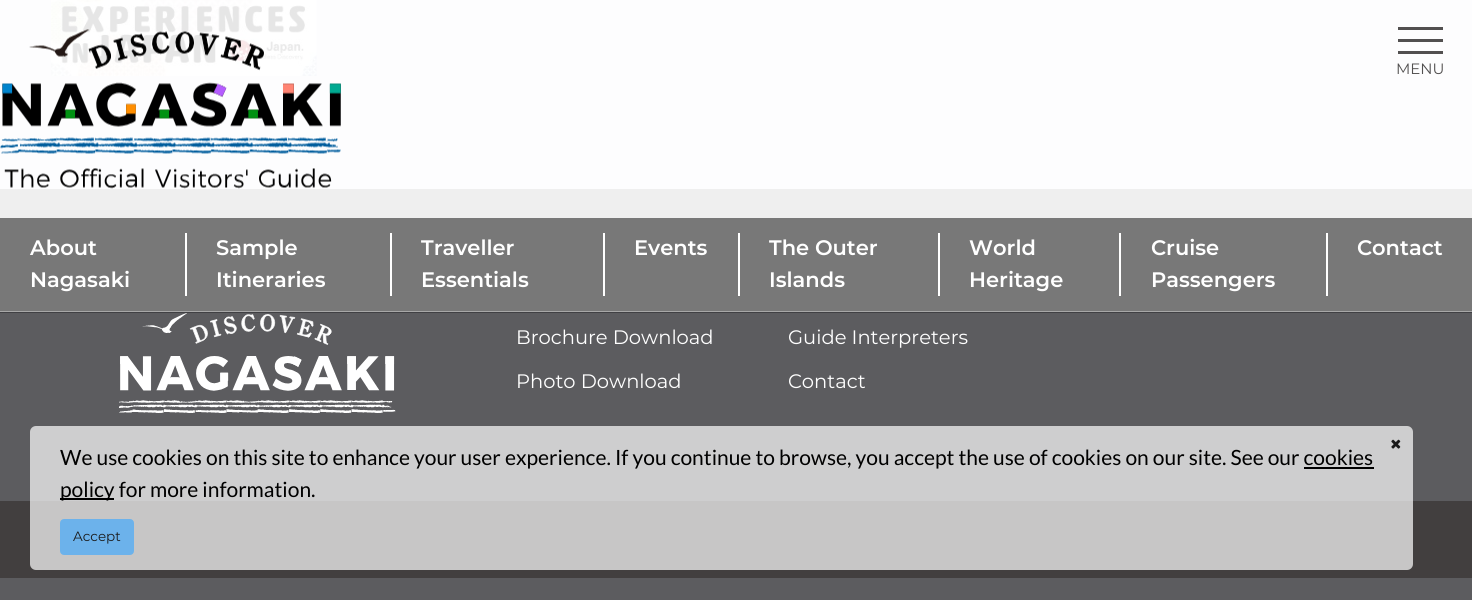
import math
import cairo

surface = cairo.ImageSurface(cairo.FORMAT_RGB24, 1472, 600)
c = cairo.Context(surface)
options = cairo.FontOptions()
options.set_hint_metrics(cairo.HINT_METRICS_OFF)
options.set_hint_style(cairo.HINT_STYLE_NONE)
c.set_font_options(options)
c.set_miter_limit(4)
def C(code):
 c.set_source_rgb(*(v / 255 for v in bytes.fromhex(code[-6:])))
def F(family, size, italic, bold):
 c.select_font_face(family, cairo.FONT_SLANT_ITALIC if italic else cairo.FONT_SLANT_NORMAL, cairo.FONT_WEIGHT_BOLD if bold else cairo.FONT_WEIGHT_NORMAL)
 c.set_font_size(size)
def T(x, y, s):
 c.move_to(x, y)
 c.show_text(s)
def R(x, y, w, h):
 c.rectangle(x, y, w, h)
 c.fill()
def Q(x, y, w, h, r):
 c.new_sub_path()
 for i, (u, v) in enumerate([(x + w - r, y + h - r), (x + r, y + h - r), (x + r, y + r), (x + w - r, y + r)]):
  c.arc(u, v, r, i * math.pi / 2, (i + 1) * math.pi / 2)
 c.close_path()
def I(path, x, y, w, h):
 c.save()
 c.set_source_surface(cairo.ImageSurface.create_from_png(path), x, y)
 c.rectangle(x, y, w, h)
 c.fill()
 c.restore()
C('5c5c5f')
c.paint()
C('fdfdfe')
R(0,0,1472,189)
I('2.png',51,0,266,76)
I('1.png',0,29,341,160)
C('525050')
R(1398,27,45,3)
R(1398,39,45,3)
R(1398,51,45,3)
F('Montserrat',15,0,0)
T(1396,74,'MENU')
C('787878')
R(0,218,1472,93)
C('ffffff')
R(185,233,2,63)
F('Montserrat SemiBold',21,0,0)
T(30,255,'About')
T(30,287,'Nagasaki')
R(390,233,2,63)
T(216,255,'Sample')
T(216,287,'Itineraries')
R(603,233,2,63)
T(421,255,'Traveller')
T(421,287,'Essentials')
R(738,233,2,63)
T(634,255,'Events')
R(938,233,2,63)
T(769,255,'The Outer')
T(769,287,'Islands')
R(1119,233,2,63)
T(969,255,'World')
T(969,287,'Heritage')
R(1326,233,2,63)
T(1151,255,'Cruise')
T(1151,287,'Passengers')
T(1357,255,'Contact')
C('404043')
R(0,312,1472,1)
C('efefef')
R(0,189,1472,29)
C('a7a7a7')
R(0,311,1472,1)
I('3.png',119,313,277,100)
F('Montserrat',19.5,0,0)
C('ffffff')
T(516,344,'Brochure Download')
T(516,388,'Photo Download')
T(788,344,'Guide Interpreters')
T(788,388,'Contact')
C('423f3f')
R(0,501,1472,77)
c.set_source_rgba(1,1,1,0.7)
Q(30,426,1383,144,6)
c.fill()
I('4.png',1391,439,10,10)
F('Lato',21,0,0)
C('000000')
T(60,465,'We use cookies on this site to enhance your user experience. If you continue to browse, you accept the use of cookies on our site. See our cookies')
R(60,498,54,2)
T(60,497,'policy for more information.')
R(1304,467,70,2)
C('6cb2eb')
Q(61,520,72,34,3)
c.fill_preserve()
c.stroke()
F('Montserrat',13.5,0,0)
C('1a1a1a')
T(73,541,'Accept')
surface.write_to_png('o.png')
